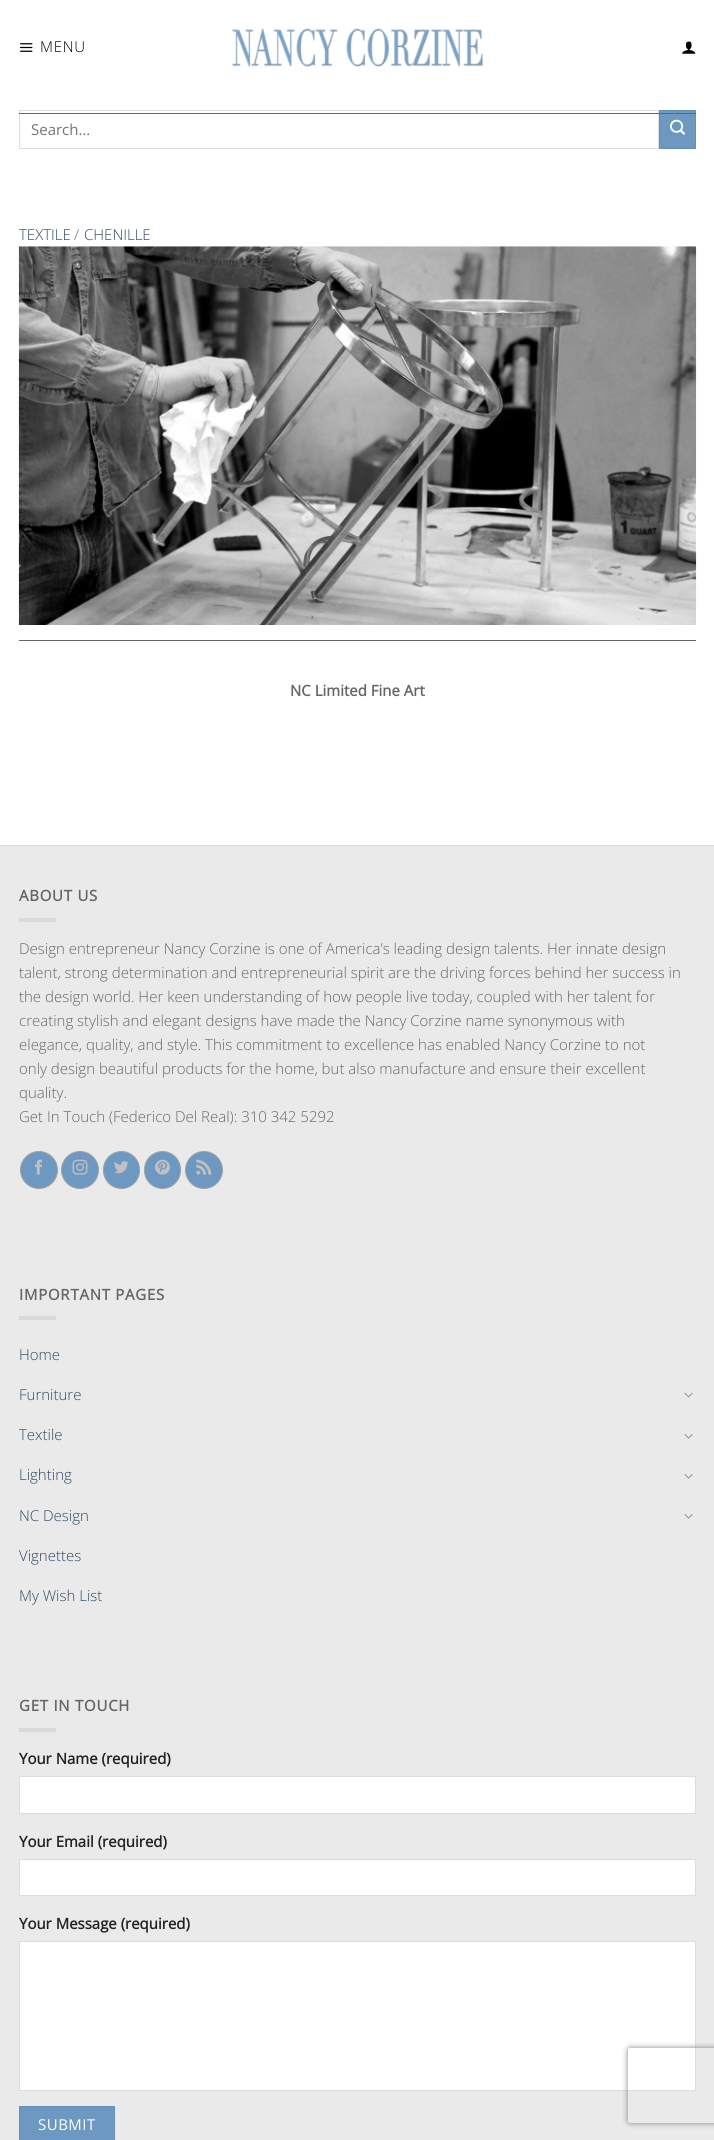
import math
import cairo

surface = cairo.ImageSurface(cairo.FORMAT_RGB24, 714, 2140)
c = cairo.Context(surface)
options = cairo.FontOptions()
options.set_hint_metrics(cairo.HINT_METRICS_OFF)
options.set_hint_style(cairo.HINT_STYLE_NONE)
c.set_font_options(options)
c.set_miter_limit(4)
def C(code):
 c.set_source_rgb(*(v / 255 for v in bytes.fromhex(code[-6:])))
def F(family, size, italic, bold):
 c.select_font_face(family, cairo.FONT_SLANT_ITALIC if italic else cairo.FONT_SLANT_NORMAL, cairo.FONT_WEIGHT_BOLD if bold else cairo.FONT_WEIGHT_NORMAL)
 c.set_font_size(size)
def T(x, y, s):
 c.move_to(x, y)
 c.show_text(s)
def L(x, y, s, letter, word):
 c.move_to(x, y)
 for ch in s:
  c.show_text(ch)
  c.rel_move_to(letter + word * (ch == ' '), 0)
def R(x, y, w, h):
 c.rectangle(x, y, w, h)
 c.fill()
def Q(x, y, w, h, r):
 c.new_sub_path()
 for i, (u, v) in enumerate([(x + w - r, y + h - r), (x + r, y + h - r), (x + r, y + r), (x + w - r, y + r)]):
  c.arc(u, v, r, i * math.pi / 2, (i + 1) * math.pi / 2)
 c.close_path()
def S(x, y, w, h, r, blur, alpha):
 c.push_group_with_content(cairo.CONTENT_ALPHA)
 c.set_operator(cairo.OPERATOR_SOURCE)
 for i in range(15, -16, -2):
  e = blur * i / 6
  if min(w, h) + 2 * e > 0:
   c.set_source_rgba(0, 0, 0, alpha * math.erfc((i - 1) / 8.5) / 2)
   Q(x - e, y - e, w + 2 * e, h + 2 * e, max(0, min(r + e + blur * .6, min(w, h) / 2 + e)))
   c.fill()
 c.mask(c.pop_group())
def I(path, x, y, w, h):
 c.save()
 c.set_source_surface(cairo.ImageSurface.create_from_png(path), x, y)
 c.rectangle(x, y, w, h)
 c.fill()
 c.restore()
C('ffffff')
c.paint()
I('1.png',20,43,13,9)
F('Open Sans Light',15,0,0)
C('000000')
L(40,52,'MENU',.75,0)
I('2.png',232,28,251,39)
I('3.png',682,41,14,13)
c.rectangle(19.5,110.5,639,38)
C('dddddd')
c.set_line_width(1)
c.stroke()
C('6c98c1')
c.rectangle(659.5,110.5,36,38)
c.fill_preserve()
C('6790b7')
c.stroke()
C('666666')
R(19,113,677,1)
F('Open Sans',15,0,0)
C('757575')
T(31,135,'Search…')
I('4.png',670,119,15,16)
F('Open Sans Light',15,0,0)
C('334862')
T(19,240,'TEXTILE')
C('666666')
T(74,240,'/')
C('334862')
T(84,240,'CHENILLE')
I('5.png',18,246,679,379)
C('666666')
R(19,640,677,1)
F('Open Sans',15,0,1)
T(290,696,'NC Limited Fine Art')
C('eaeaea')
R(0,846,714,1294)
C('dedede')
R(0,845,714,1)
C('666666')
L(19,901,'ABOUT US',.75,0)
C('ddd9d9')
R(19,918,37,4)
F('Open Sans Light',15,0,0)
C('666666')
T(19,954,'Design entrepreneur Nancy Corzine is one of America’s leading design talents. Her innate design')
T(19,978,'talent, strong determination and entrepreneurial spirit are the driving forces behind her success in')
T(19,1002,'the design world. Her keen understanding of how people live today, coupled with her talent for')
T(19,1026,'creating stylish and elegant designs have made the Nancy Corzine name synonymous with')
T(19,1050,'elegance, quality, and style. This commitment to excellence has enabled Nancy Corzine to not')
T(19,1074,'only design beautiful products for the home, but also manufacture and ensure their excellent')
T(19,1098,'quality.')
T(19,1122,'Get In Touch (Federico Del Real): 310 342 5292')
C('6c98c1')
c.new_path()
c.arc(39,1170,18.5,0,2 * math.pi)
c.fill_preserve()
C('a2a2a2')
c.stroke()
I('6.png',35,1159,7,16)
C('6c98c1')
c.arc(80,1170,18.5,0,2 * math.pi)
c.fill_preserve()
C('a2a2a2')
c.stroke()
I('7.png',72,1159,16,16)
C('6c98c1')
Q(103.5,1151.5,36,37,18)
c.fill_preserve()
C('a2a2a2')
c.stroke()
I('8.png',114,1161,15,13)
C('6c98c1')
Q(144.5,1151.5,36,37,18)
c.fill_preserve()
C('a2a2a2')
c.stroke()
I('9.png',155,1159,15,16)
C('6c98c1')
c.arc(204,1170,18.5,0,2 * math.pi)
c.fill_preserve()
C('a2a2a2')
c.stroke()
I('10.png',196,1159,16,16)
F('Open Sans',15,0,1)
C('666666')
L(19,1300,'IMPORTANT PAGES',.75,0)
C('ddd9d9')
R(19,1316,37,4)
F('Open Sans Light',15,0,0)
C('334862')
T(19,1360,'Home')
T(19,1400,'Furniture')
I('11.png',684,1392,9,6)
T(19,1440,'Textile')
I('12.png',684,1434,9,5)
T(19,1480,'Lighting')
I('12.png',684,1474,9,5)
T(19,1521,'NC Design')
I('12.png',684,1514,9,5)
T(19,1561,'Vignettes')
T(19,1601,'My Wish List')
F('Open Sans',15,0,1)
C('666666')
L(19,1711,'GET IN TOUCH',.75,0)
C('ddd9d9')
R(19,1728,37,4)
C('222222')
T(19,1764,'Your Name (required)')
C('ffffff')
c.rectangle(19.5,1776.5,676,37)
c.fill_preserve()
C('dddddd')
c.stroke()
C('222222')
T(19,1847,'Your Email (required)')
C('ffffff')
c.rectangle(19.5,1859.5,676,36)
c.fill_preserve()
C('dddddd')
c.stroke()
C('222222')
T(19,1929,'Your Message (required)')
C('ffffff')
c.rectangle(19.5,1941.5,676,149)
c.fill_preserve()
C('dddddd')
c.stroke()
C('6c98c1')
c.rectangle(19.5,2106.5,95,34)
c.fill_preserve()
C('6790b7')
c.stroke()
F('Open Sans',15,0,0)
C('ffffff')
L(38,2130,'SUBMIT',.5,0)
c.save()
c.set_fill_rule(cairo.FILL_RULE_EVEN_ODD)
c.new_path()
c.move_to(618,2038)
c.line_to(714,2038)
c.line_to(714,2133)
c.line_to(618,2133)
c.close_path()
c.move_to(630.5,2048)
c.line_to(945.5,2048)
c.curve_to(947,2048,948,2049,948,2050.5)
c.line_to(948,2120.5)
c.curve_to(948,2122,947,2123,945.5,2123)
c.line_to(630.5,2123)
c.curve_to(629,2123,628,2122,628,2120.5)
c.line_to(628,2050.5)
c.curve_to(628,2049,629,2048,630.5,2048)
c.close_path()
c.clip()
C('808080')
S(628,2048,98,75,2.5,3,1)
c.restore()
surface.write_to_png('o.png')
